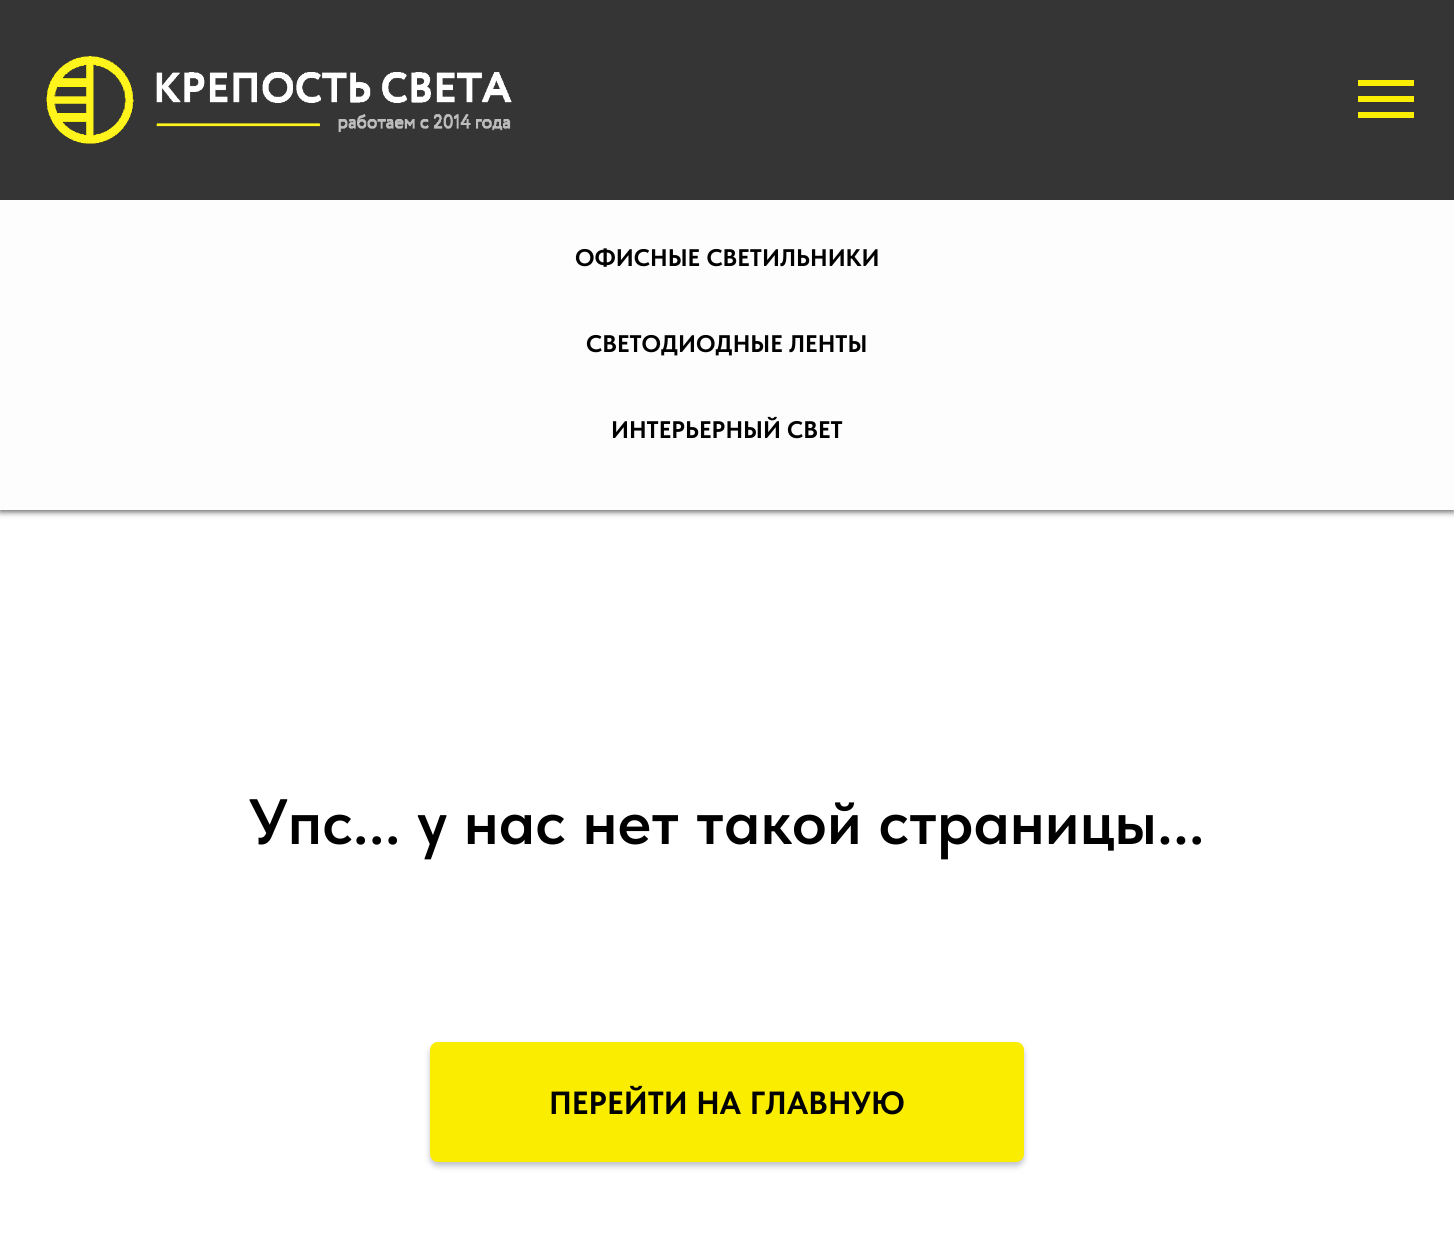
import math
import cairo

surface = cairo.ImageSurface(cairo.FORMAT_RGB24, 1454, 1246)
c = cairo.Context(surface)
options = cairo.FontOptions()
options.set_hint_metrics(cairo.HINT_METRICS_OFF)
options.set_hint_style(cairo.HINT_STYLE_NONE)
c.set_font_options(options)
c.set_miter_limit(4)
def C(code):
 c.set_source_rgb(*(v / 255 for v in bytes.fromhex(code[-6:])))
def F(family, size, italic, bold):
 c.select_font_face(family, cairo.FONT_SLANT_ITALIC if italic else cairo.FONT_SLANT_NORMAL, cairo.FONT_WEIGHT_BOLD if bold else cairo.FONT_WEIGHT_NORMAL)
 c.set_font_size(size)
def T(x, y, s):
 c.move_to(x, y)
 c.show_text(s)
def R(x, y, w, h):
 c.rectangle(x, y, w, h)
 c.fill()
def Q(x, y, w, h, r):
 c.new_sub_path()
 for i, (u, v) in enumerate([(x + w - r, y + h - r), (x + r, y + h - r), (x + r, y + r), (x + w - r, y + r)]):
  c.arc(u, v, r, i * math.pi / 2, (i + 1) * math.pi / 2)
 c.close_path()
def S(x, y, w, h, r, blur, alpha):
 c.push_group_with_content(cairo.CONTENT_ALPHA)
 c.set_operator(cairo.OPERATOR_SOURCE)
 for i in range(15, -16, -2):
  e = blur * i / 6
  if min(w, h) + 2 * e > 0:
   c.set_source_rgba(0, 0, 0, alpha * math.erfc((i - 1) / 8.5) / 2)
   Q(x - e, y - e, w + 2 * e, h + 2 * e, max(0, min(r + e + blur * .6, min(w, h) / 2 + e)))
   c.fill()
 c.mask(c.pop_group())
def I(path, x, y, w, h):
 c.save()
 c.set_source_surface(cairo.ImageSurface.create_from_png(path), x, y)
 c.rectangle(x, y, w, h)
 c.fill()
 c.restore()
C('ffffff')
c.paint()
C('000000')
S(0,2,1454,510,0,3,.6)
C('353535')
R(0,0,1454,200)
I('1.png',46,56,466,88)
C('fbed00')
R(1358,80,56,6)
R(1358,96,56,6)
R(1358,112,56,6)
C('fdfdfd')
R(0,200,1454,310)
F('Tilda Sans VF',24,0,1)
C('000000')
T(575,266,'ОФИСНЫЕ СВЕТИЛЬНИКИ')
T(586,352,'СВЕТОДИОДНЫЕ ЛЕНТЫ')
T(611,438,'ИНТЕРЬЕРНЫЙ СВЕТ')
F('Tilda Sans VF SemiBold',64,0,0)
T(249,844,'Упс... у нас нет такой страницы...')
C('000b30')
S(430,1046,594,120,8,3,.25)
C('fbed00')
Q(430,1042,594,120,8)
c.fill()
F('Tilda Sans VF',32,0,1)
C('000000')
T(549,1114,'ПЕРЕЙТИ НА ГЛАВНУЮ')
surface.write_to_png('o.png')
